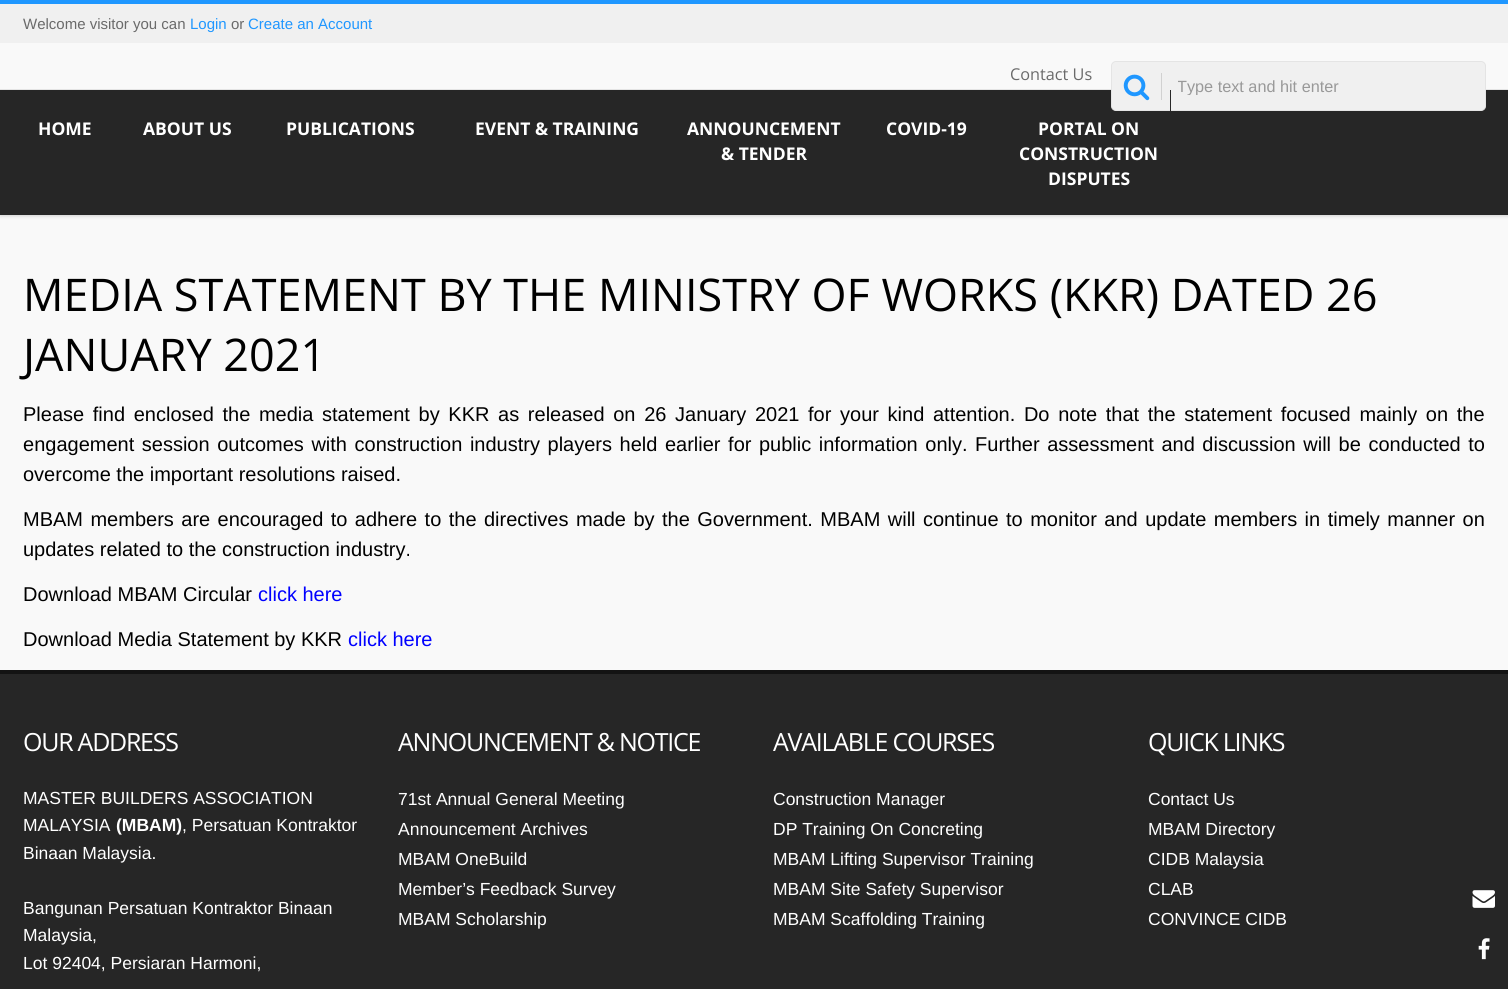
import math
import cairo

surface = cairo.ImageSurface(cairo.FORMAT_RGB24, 1508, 989)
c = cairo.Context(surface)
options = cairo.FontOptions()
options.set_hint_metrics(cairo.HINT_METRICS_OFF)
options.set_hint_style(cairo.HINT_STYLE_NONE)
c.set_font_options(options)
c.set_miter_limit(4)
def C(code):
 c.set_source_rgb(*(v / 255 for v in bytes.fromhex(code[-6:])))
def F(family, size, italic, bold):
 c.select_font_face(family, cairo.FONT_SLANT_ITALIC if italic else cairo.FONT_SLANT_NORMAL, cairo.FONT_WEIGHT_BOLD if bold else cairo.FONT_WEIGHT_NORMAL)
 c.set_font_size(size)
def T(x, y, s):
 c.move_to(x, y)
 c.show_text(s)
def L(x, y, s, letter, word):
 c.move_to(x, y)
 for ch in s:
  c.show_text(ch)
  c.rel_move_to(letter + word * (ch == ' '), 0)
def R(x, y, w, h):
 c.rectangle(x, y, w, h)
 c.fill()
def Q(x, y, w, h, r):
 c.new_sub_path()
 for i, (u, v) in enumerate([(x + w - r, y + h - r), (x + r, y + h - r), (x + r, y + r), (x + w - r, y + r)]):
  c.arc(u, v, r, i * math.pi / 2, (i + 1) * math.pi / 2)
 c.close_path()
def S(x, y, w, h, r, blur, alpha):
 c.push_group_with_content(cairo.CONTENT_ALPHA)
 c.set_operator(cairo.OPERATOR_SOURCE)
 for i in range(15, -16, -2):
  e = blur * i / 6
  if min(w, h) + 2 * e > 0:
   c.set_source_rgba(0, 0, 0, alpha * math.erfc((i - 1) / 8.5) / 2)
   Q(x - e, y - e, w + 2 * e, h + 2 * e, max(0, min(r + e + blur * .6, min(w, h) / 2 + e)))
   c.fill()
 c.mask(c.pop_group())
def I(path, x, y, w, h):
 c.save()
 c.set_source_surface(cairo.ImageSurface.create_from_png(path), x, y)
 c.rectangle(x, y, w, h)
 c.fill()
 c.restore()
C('262626')
c.paint()
C('f9f9f9')
R(0,215,1508,455)
C('000000')
S(0,43,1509,172,0,2.5,.25)
C('f0f0f0')
R(0,4,1508,39)
C('1f97ff')
R(0,0,1508,4)
F('Liberation Sans',15,0,0)
C('6a6a6a')
T(23,29,'Welcome visitor you can')
C('1f97ff')
T(190,29,'Login')
C('6a6a6a')
T(231,29,'or')
C('1f97ff')
T(248,29,'Create an Account')
C('f9f9f9')
R(0,43,1508,46)
F('Open Sans',16.25,0,0)
C('6a6a6a')
T(1010,80,'Contact Us')
C('262626')
R(0,90,1508,125)
C('e4e4e4')
R(0,89,1508,1)
C('f0f0f0')
Q(1111.5,61.5,374,49,4.5)
c.fill_preserve()
C('e4e4e4')
c.set_line_width(1)
c.stroke()
C('d1d1d1')
R(1161,73,1,27)
I('1.png',1123,74,27,27)
c.save()
c.rectangle(1178,76,295,19)
c.clip()
F('Liberation Sans',16.25,0,0)
C('999999')
T(1177,92,'Type text and hit enter')
c.restore()
F('Open Sans',17.5,0,1)
C('ffffff')
T(38,135,'HOME')
T(143,135,'ABOUT US')
T(286,135,'PUBLICATIONS')
T(475,135,'EVENT & TRAINING')
T(687,135,'ANNOUNCEMENT')
T(721,160,'& TENDER')
T(886,135,'COVID-19')
C('282828')
R(1170,90,1,21)
C('ffffff')
T(1038,135,'PORTAL ON')
T(1019,160,'CONSTRUCTION')
T(1048,185,'DISPUTES')
F('Open Sans',45,0,0)
C('000000')
T(23,311,'MEDIA STATEMENT BY THE MINISTRY OF WORKS (KKR) DATED 26')
T(23,371,'JANUARY 2021')
F('Liberation Sans',20,0,0)
L(23,421,'Please find enclosed the media statement by KKR as released on 26 January 2021 for your kind attention. Do note that the statement focused mainly on the',0,3.1)
L(23,451,'engagement session outcomes with construction industry players held earlier for public information only. Further assessment and discussion will be conducted to',0,2)
T(23,481,'overcome the important resolutions raised.')
L(23,526,'MBAM members are encouraged to adhere to the directives made by the Government. MBAM will continue to monitor and update members in timely manner on',0,1.9)
T(23,556,'updates related to the construction industry.')
T(23,601,'Download MBAM Circular')
C('0000ff')
T(258,601,'click here')
C('000000')
T(23,646,'Download Media Statement by KKR')
C('0000ff')
T(348,646,'click here')
C('131313')
R(0,670,1508,4)
F('Open Sans',25,0,0)
C('ffffff')
L(23,751,'OUR ADDRESS',-1.25,0)
F('Liberation Sans',17.5,0,0)
T(23,804,'MASTER BUILDERS ASSOCIATION')
T(23,831,'MALAYSIA')
F('Liberation Sans',17.5,0,1)
T(116,831,'(MBAM)')
F('Liberation Sans',17.5,0,0)
T(182,831,', Persatuan Kontraktor')
T(23,859,'Binaan Malaysia.')
T(23,914,'Bangunan Persatuan Kontraktor Binaan')
T(23,941,'Malaysia,')
T(23,969,'Lot 92404, Persiaran Harmoni,')
F('Open Sans',25,0,0)
L(398,751,'ANNOUNCEMENT & NOTICE',-1.25,0)
F('Liberation Sans',17.5,0,0)
T(398,805,'71st Annual General Meeting')
T(398,835,'Announcement Archives')
T(398,865,'MBAM OneBuild')
T(398,895,'Member’s Feedback Survey')
T(398,925,'MBAM Scholarship')
F('Open Sans',25,0,0)
L(773,751,'AVAILABLE COURSES',-1.25,0)
F('Liberation Sans',17.5,0,0)
T(773,805,'Construction Manager')
T(773,835,'DP Training On Concreting')
T(773,865,'MBAM Lifting Supervisor Training')
T(773,895,'MBAM Site Safety Supervisor')
T(773,925,'MBAM Scaffolding Training')
F('Open Sans',25,0,0)
L(1148,751,'QUICK LINKS',-1.25,0)
F('Liberation Sans',17.5,0,0)
T(1148,805,'Contact Us')
T(1148,835,'MBAM Directory')
T(1148,865,'CIDB Malaysia')
T(1148,895,'CLAB')
T(1148,925,'CONVINCE CIDB')
I('2.png',1472,890,23,18)
I('3.png',1478,938,12,22)
surface.write_to_png('o.png')
